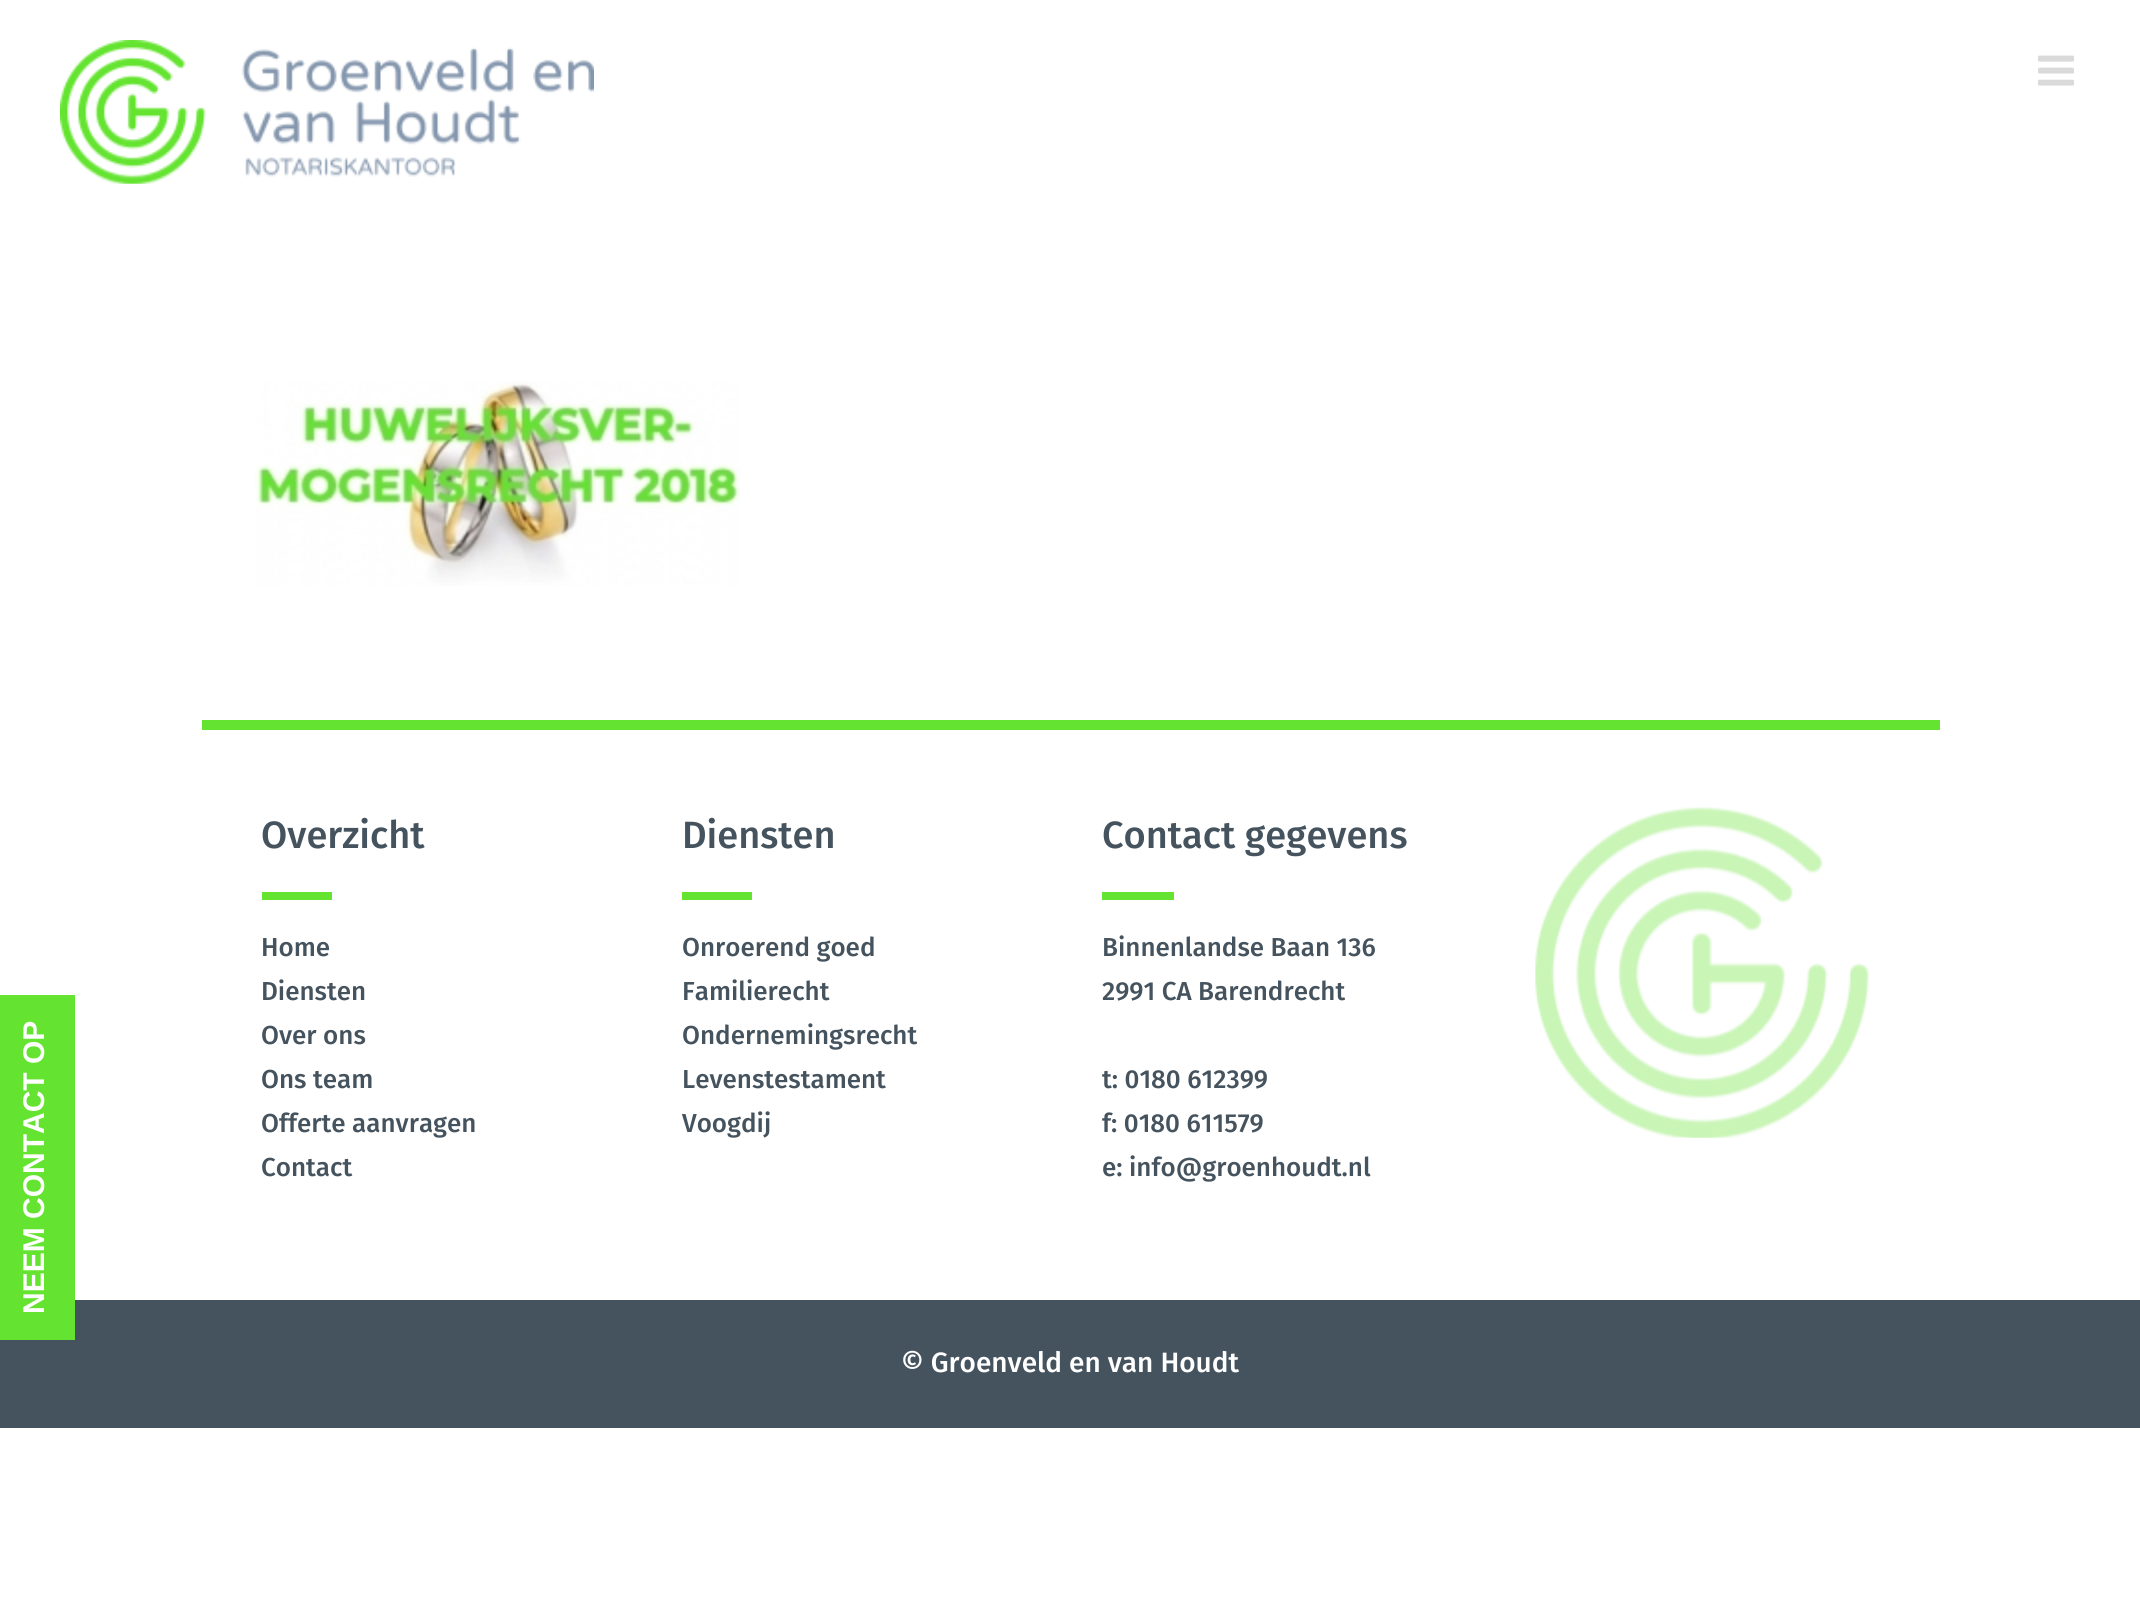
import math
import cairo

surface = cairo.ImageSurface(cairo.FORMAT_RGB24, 2140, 1617)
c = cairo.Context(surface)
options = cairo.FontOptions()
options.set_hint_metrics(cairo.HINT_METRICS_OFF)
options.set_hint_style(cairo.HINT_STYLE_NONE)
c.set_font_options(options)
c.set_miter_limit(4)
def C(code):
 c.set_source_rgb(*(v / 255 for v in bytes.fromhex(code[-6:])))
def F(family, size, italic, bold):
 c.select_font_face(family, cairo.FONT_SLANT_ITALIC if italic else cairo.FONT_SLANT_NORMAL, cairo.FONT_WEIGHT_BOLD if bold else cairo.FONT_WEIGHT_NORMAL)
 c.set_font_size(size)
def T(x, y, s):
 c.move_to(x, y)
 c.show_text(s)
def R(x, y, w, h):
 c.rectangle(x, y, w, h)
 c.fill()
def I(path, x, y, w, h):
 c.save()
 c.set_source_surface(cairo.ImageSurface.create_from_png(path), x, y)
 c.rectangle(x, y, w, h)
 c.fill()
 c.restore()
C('ffffff')
c.paint()
C('45535f')
R(0,1300,2140,128)
C('64e430')
R(0,995,75,345)
F('Liberation Sans',30,0,1)
C('ffffff')
c.save()
c.translate(44,1314)
c.rotate(-90 * math.pi / 180)
T(0,0,'NEEM CONTACT OP')
c.restore()
I('1.png',60,40,534,144)
I('2.png',2038,55,36,31)
I('3.png',255,381,485,205)
C('64e430')
R(202,720,1738,10)
F('Fira Sans Medium',38,0,0)
C('45535e')
T(261,848,'Overzicht')
C('64e430')
R(262,892,70,8)
F('Fira Sans Medium',26,0,0)
C('45535e')
T(261,956,'Home')
T(261,1000,'Diensten')
T(261,1044,'Over ons')
T(261,1088,'Ons team')
T(261,1132,'Offerte aanvragen')
T(261,1176,'Contact')
F('Fira Sans Medium',38,0,0)
T(682,848,'Diensten')
C('64e430')
R(682,892,70,8)
F('Fira Sans Medium',26,0,0)
C('45535e')
T(682,956,'Onroerend goed')
T(682,1000,'Familierecht')
T(682,1044,'Ondernemingsrecht')
T(682,1088,'Levenstestament')
T(682,1132,'Voogdij')
F('Fira Sans Medium',38,0,0)
T(1102,848,'Contact gegevens')
C('64e430')
R(1102,892,72,8)
F('Fira Sans Medium',26,0,0)
C('45535e')
T(1102,956,'Binnenlandse Baan 136')
T(1102,1000,'2991 CA Barendrecht')
T(1102,1088,'t: 0180 612399')
T(1102,1132,'f: 0180 611579')
T(1102,1176,'e: info@groenhoudt.nl')
I('4.png',1535,807,334,331)
F('Fira Sans Medium',28,0,0)
C('ffffff')
T(901,1372,'© Groenveld en van Houdt')
surface.write_to_png('o.png')
